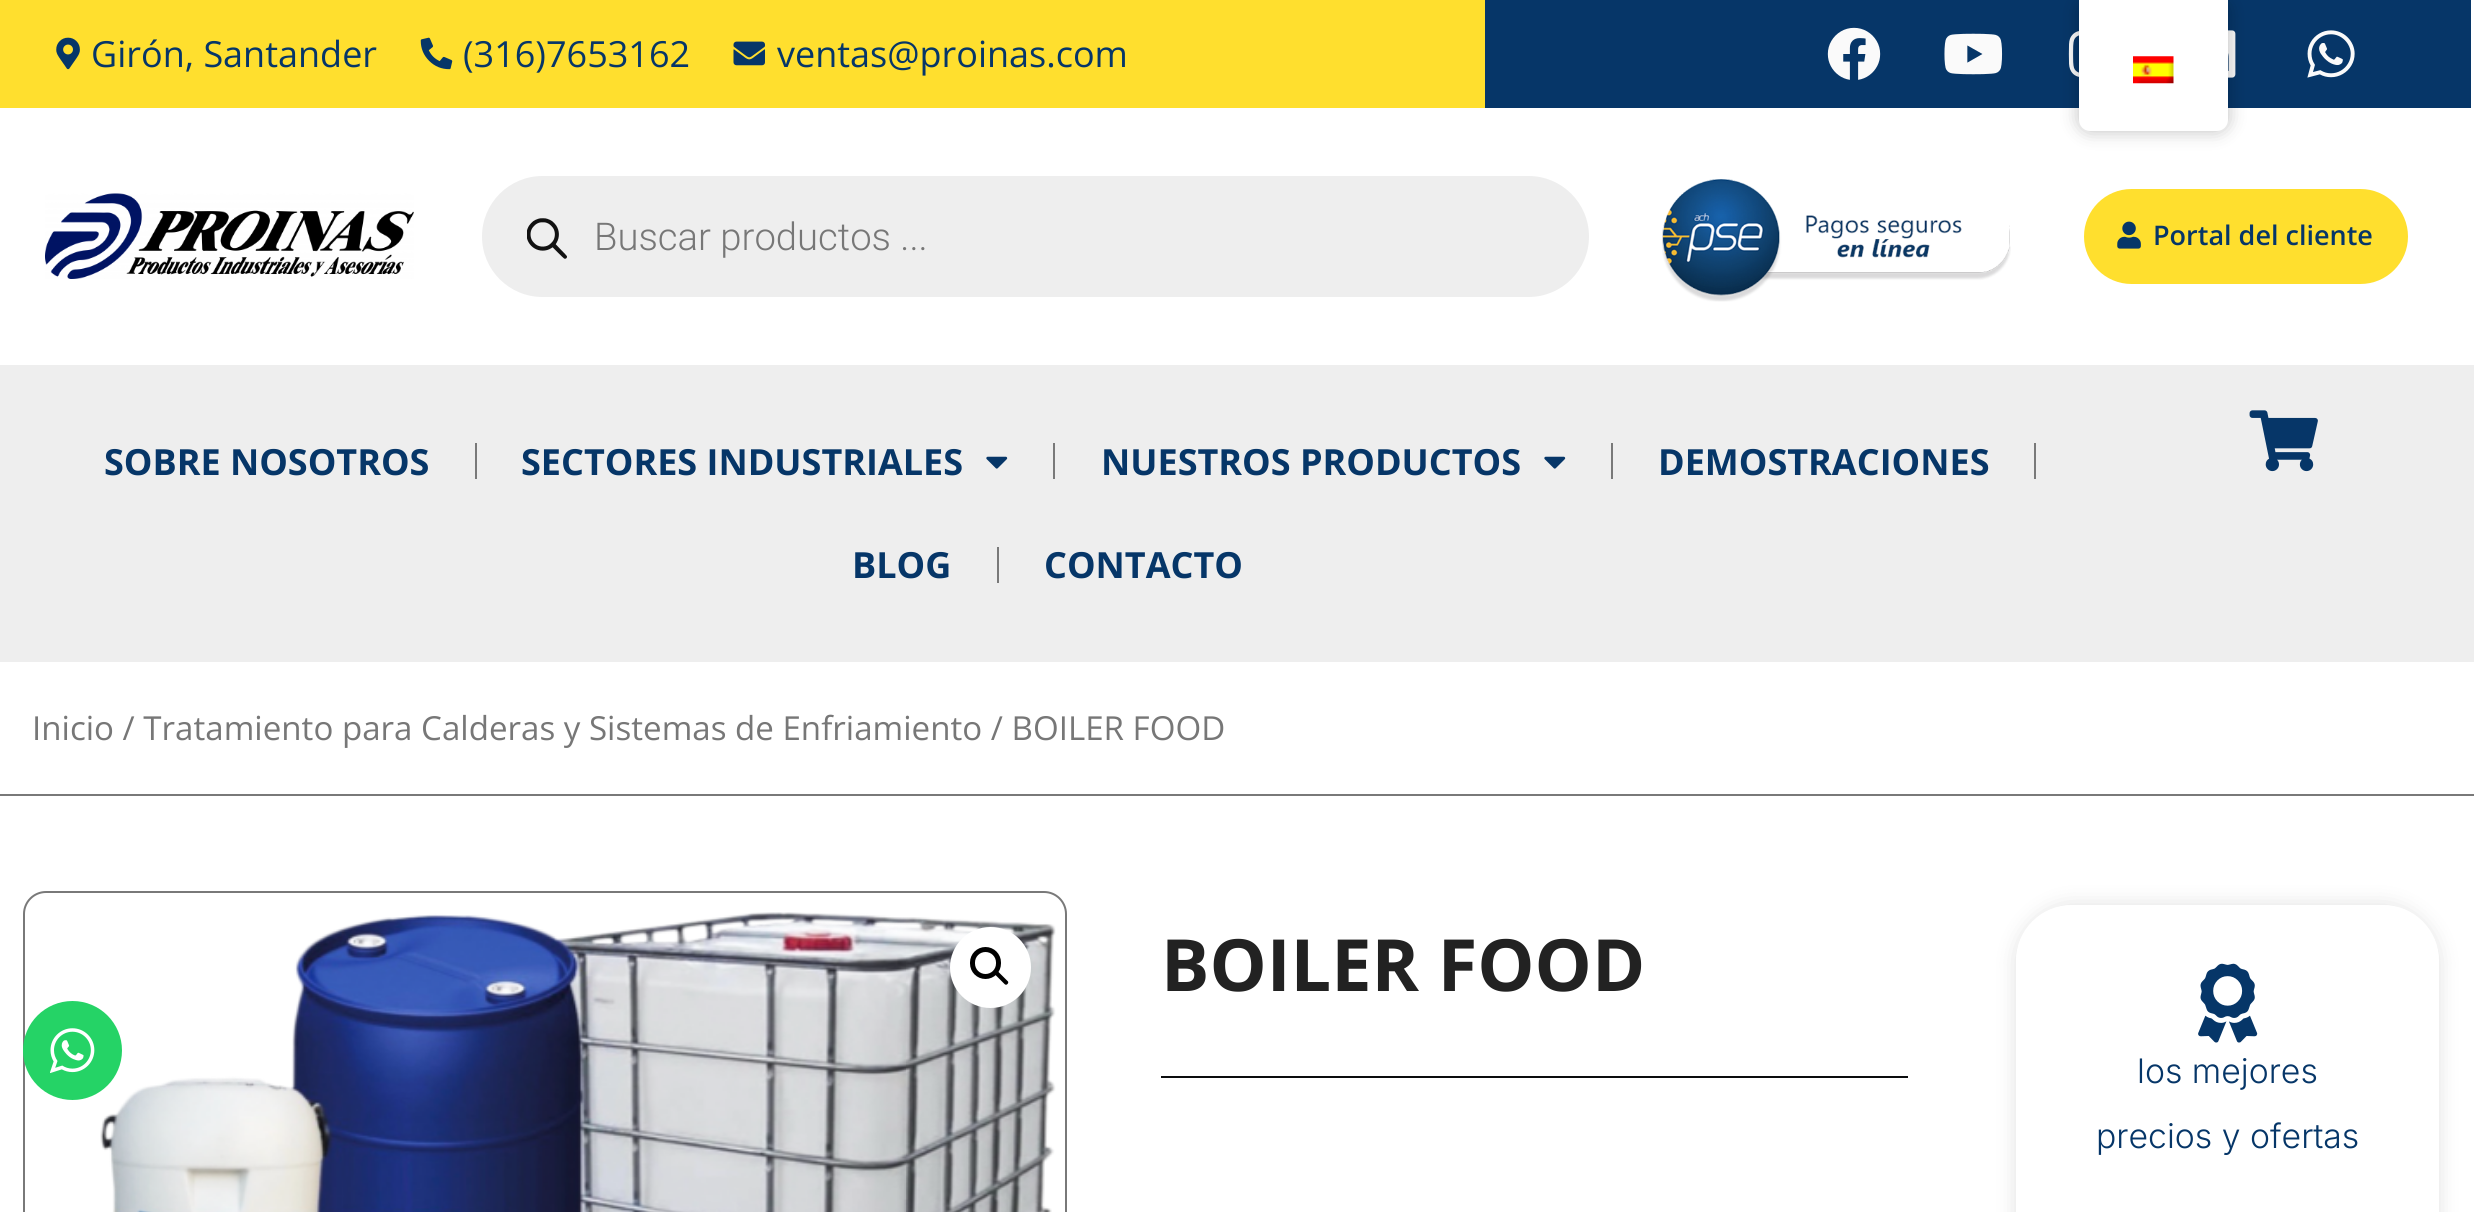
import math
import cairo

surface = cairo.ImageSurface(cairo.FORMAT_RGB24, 2474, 1212)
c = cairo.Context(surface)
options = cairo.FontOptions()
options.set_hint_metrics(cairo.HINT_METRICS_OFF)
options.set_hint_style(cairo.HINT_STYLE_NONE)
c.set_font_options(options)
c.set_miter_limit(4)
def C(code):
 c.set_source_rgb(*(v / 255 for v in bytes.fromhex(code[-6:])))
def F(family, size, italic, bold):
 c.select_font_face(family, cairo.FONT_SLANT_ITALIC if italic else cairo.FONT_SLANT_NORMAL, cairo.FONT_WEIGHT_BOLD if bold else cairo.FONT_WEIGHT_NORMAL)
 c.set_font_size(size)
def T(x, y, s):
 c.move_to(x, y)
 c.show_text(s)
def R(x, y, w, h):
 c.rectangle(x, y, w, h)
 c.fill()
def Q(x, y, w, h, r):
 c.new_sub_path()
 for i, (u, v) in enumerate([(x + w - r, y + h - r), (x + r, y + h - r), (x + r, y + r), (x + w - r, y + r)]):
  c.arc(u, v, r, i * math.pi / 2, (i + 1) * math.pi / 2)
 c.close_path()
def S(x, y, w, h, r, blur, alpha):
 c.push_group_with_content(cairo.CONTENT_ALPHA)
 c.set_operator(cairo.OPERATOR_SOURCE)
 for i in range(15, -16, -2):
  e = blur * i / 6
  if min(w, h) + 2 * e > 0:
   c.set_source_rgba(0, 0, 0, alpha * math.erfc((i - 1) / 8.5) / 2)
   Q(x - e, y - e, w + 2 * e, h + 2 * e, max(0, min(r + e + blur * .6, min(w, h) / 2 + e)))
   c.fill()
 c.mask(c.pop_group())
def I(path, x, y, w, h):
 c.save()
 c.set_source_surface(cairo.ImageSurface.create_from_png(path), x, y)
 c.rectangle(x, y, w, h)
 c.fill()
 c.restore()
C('ffffff')
c.paint()
C('063668')
R(1485,0,986,108)
I('7.png',2068,31,11,46)
I('8.png',2228,30,8,48)
C('000000')
S(2079,0,149,131,11,9,.25)
C('ffffff')
c.new_path()
c.move_to(2079,0)
c.line_to(2228,0)
c.line_to(2228,120)
c.curve_to(2228,126,2223,131,2217,131)
c.line_to(2090,131)
c.curve_to(2084,131,2079,126,2079,120)
c.close_path()
c.fill()
I('1.png',2133,56,41,28)
C('ffdf2e')
R(0,0,1485,108)
I('2.png',56,37,24,33)
F('Open Sans',36,0,0)
C('063668')
T(91,67,'Girón, Santander')
I('3.png',420,37,33,33)
T(463,67,'(316)7653162')
I('4.png',733,41,32,25)
T(777,67,'ventas@proinas.com')
I('5.png',1827,27,54,53)
I('6.png',1944,33,59,42)
I('9.png',2307,30,48,48)
I('10.png',45,193,369,86)
C('eeeeee')
Q(482,176,1107,121,60.5)
c.fill()
I('11.png',527,218,40,41)
F('Roboto Light',38.25,0,0)
C('777777')
T(594,250,'Buscar productos ...')
I('12.png',1662,179,349,123)
C('ffdf2e')
Q(2084,189,324,95,47.5)
c.fill()
I('13.png',2117,221,24,28)
F('Open Sans SemiBold',27,0,0)
C('063668')
T(2153,245,'Portal del cliente')
C('eeeeee')
R(0,365,2474,297)
I('14.png',2249,410,69,62)
F('Open Sans',36,0,1)
C('063668')
T(104,475,'SOBRE NOSOTROS')
C('797979')
R(475,443,2,36)
C('063668')
T(521,475,'SECTORES INDUSTRIALES')
I('15.png',986,456,22,13)
C('797979')
R(1053,443,2,36)
C('063668')
T(1101,475,'NUESTROS PRODUCTOS')
I('15.png',1544,456,22,13)
C('797979')
R(1611,443,2,36)
C('063668')
T(1658,475,'DEMOSTRACIONES')
C('797979')
R(2034,443,2,36)
C('063668')
T(852,578,'BLOG')
C('797979')
R(997,547,2,36)
C('063668')
T(1044,578,'CONTACTO')
C('797979')
R(0,794,2474,2)
F('Open Sans',33.1,0,0)
C('777777')
T(32,740,'Inicio / Tratamiento para Calderas y Sistemas de Enfriamiento / BOILER FOOD')
Q(24,892,1042,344,22)
C('797979')
c.stroke()
I('16.png',100,912,956,300)
C('ffffff')
c.arc(990.5,967.5,40.5,0,2 * math.pi)
c.fill()
Q(972.5,949.5,26,27,13)
C('000000')
c.set_line_width(5)
c.stroke()
c.new_path()
c.move_to(995,971.5)
c.curve_to(996,970.5,997,970.5,998,971.5)
c.line_to(1007.5,981)
c.curve_to(1008.5,981.5,1008.5,983,1007.5,984)
c.curve_to(1006.5,985,1005.5,985,1004.5,984)
c.line_to(995,974.5)
c.curve_to(994,973.5,994,972,995,971.5)
c.close_path()
c.fill()
F('Open Sans',72,0,1)
C('222222')
T(1161,991,'BOILER FOOD')
C('0c0d0e')
R(1161,1076,747,2)
c.save()
c.set_fill_rule(cairo.FILL_RULE_EVEN_ODD)
c.new_path()
c.move_to(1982,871)
c.line_to(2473,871)
c.line_to(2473,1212)
c.line_to(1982,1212)
c.close_path()
c.move_to(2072,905)
c.line_to(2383,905)
c.curve_to(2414,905,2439,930,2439,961)
c.line_to(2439,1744)
c.curve_to(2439,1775,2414,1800,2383,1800)
c.line_to(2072,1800)
c.curve_to(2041,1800,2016,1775,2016,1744)
c.line_to(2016,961)
c.curve_to(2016,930,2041,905,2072,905)
c.close_path()
c.clip()
C('000000')
S(2016,905,423,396,56,11,.12)
c.restore()
I('17.png',2198,963,60,80)
F('Inter Light',33.75,0,0)
C('063668')
T(2137,1083,'los mejores')
T(2096,1148,'precios y ofertas')
C('25d366')
c.new_path()
c.arc(72.5,1050.5,49.5,0,2 * math.pi)
c.fill()
I('18.png',50,1028,45,45)
surface.write_to_png('o.png')
